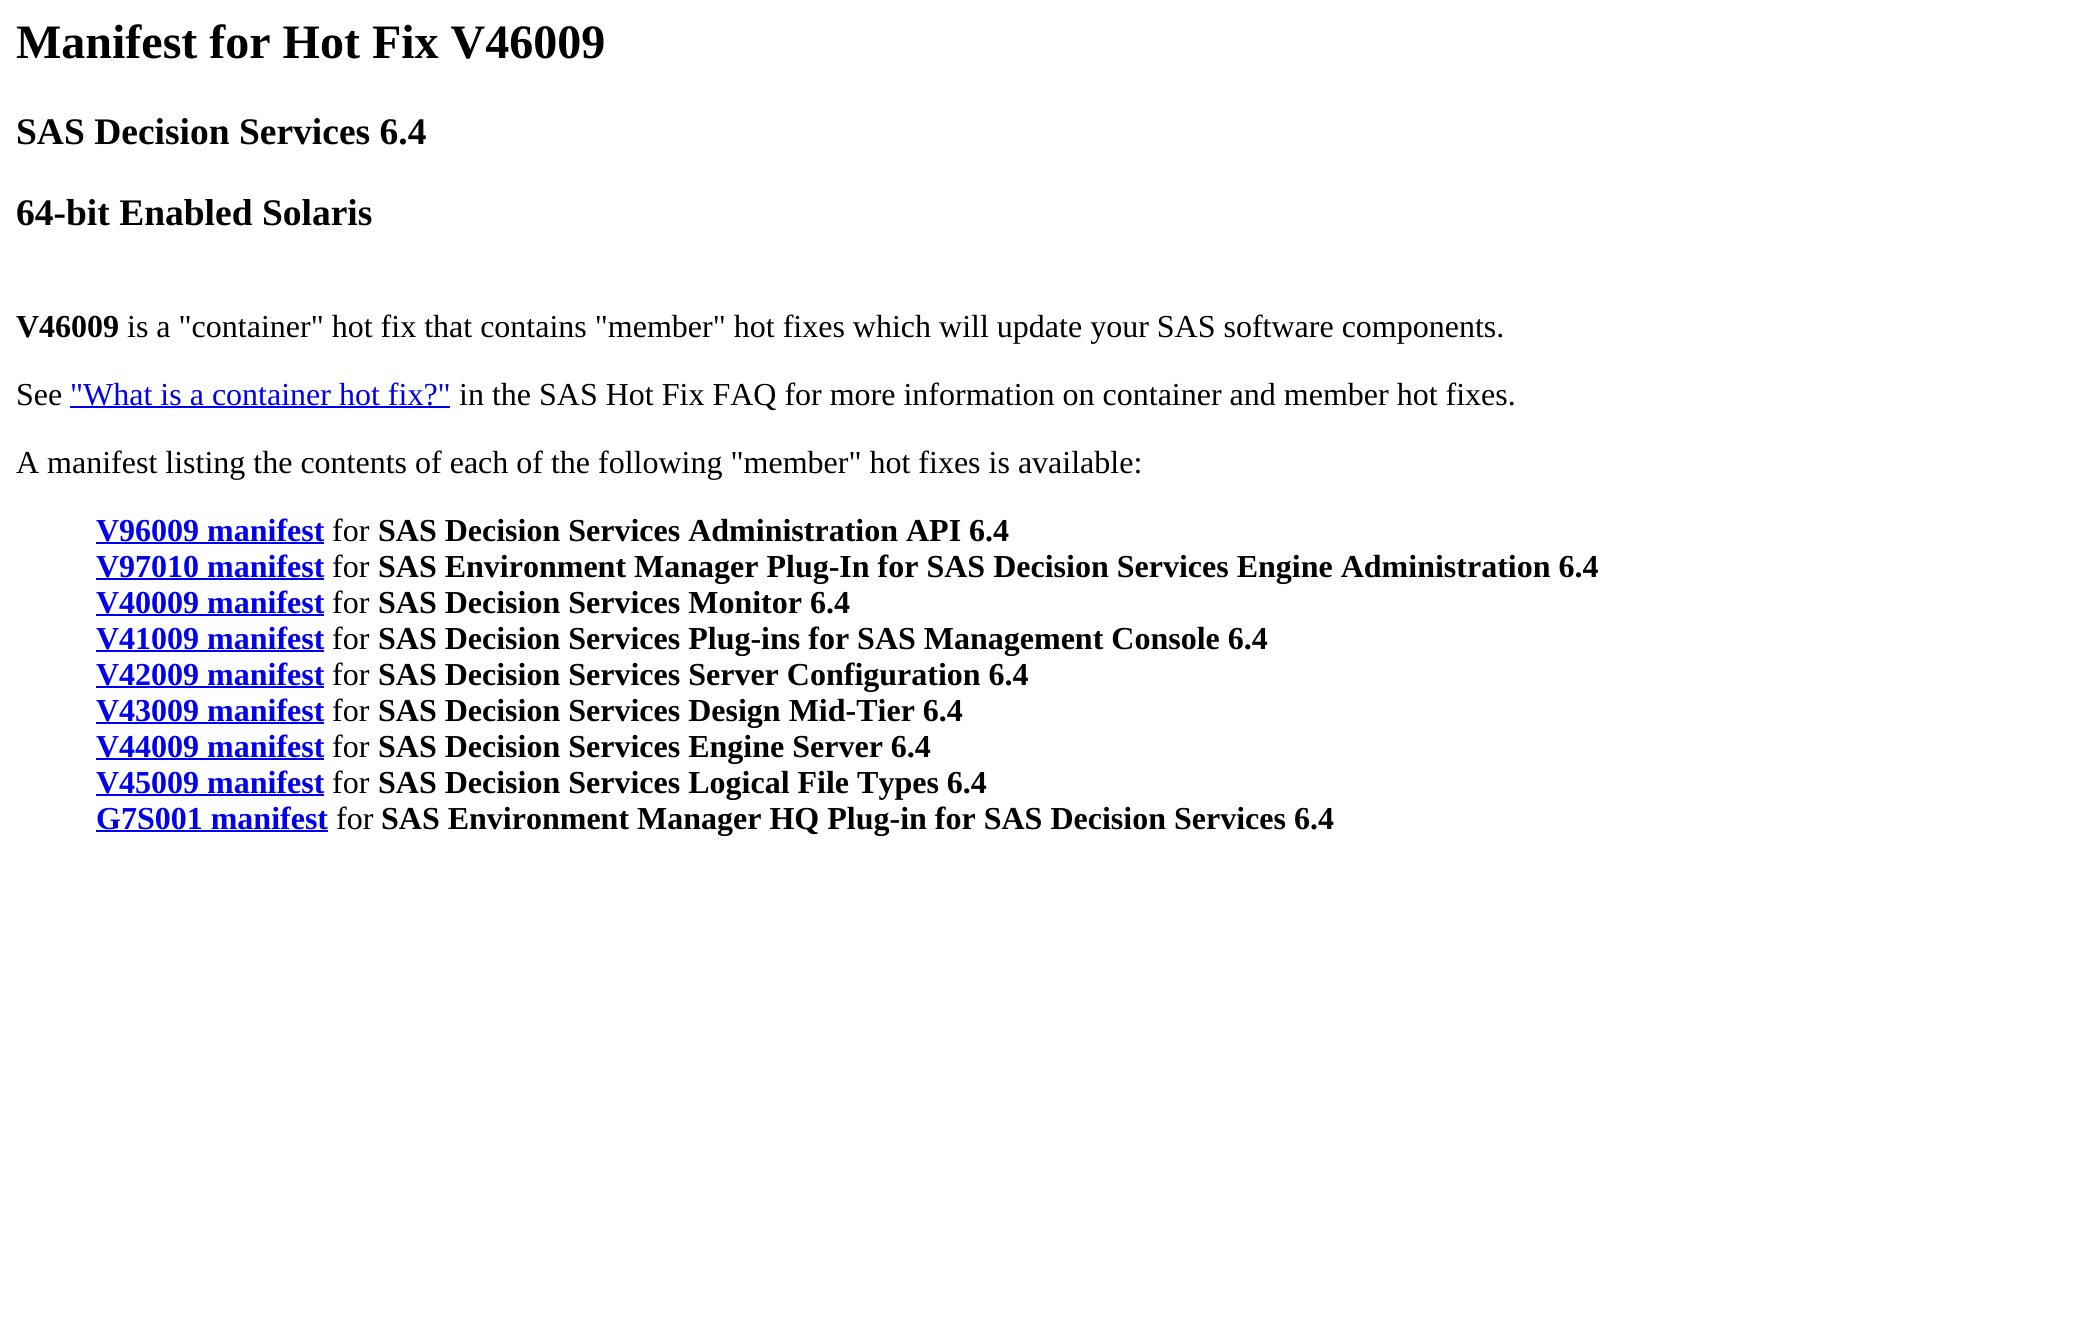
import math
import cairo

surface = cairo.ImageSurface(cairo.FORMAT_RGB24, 2084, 1317)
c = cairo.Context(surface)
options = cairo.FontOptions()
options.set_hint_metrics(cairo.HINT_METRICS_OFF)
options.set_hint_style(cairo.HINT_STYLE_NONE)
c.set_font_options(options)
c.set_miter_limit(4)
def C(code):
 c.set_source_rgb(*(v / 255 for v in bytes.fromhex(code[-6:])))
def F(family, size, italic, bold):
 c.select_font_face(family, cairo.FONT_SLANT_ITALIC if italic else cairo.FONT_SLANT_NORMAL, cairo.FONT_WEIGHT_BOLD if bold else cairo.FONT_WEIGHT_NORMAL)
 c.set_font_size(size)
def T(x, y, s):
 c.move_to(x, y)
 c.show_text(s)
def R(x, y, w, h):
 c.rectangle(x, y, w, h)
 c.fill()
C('ffffff')
c.paint()
F('Liberation Serif',48,0,1)
C('000000')
T(16,58,'Manifest for Hot Fix V46009')
F('Liberation Serif',37.5,0,1)
T(16,144,'SAS Decision Services 6.4')
T(16,225,'64-bit Enabled Solaris')
F('Liberation Serif',32,0,1)
T(16,337,'V46009')
F('Liberation Serif',32,0,0)
T(127,337,'is a "container" hot fix that contains "member" hot fixes which will update your SAS software components.')
T(16,405,'See')
C('0000ee')
T(70,405,'"What is a container hot fix?"')
R(70,406,380,2)
C('000000')
T(459,405,'in the SAS Hot Fix FAQ for more information on container and member hot fixes.')
T(16,473,'A manifest listing the contents of each of the following "member" hot fixes is available:')
F('Liberation Serif',32,0,1)
C('0000ee')
T(96,541,'V96009 manifest')
R(96,542,228,2)
F('Liberation Serif',32,0,0)
C('000000')
T(332,541,'for')
F('Liberation Serif',32,0,1)
T(378,541,'SAS Decision Services Administration API 6.4')
C('0000ee')
T(96,577,'V97010 manifest')
R(96,578,228,2)
F('Liberation Serif',32,0,0)
C('000000')
T(332,577,'for')
F('Liberation Serif',32,0,1)
T(378,577,'SAS Environment Manager Plug-In for SAS Decision Services Engine Administration 6.4')
C('0000ee')
T(96,613,'V40009 manifest')
R(96,614,228,2)
F('Liberation Serif',32,0,0)
C('000000')
T(332,613,'for')
F('Liberation Serif',32,0,1)
T(378,613,'SAS Decision Services Monitor 6.4')
C('0000ee')
T(96,649,'V41009 manifest')
R(96,650,228,2)
F('Liberation Serif',32,0,0)
C('000000')
T(332,649,'for')
F('Liberation Serif',32,0,1)
T(378,649,'SAS Decision Services Plug-ins for SAS Management Console 6.4')
C('0000ee')
T(96,685,'V42009 manifest')
R(96,686,228,2)
F('Liberation Serif',32,0,0)
C('000000')
T(332,685,'for')
F('Liberation Serif',32,0,1)
T(378,685,'SAS Decision Services Server Configuration 6.4')
C('0000ee')
T(96,721,'V43009 manifest')
R(96,722,228,2)
F('Liberation Serif',32,0,0)
C('000000')
T(332,721,'for')
F('Liberation Serif',32,0,1)
T(378,721,'SAS Decision Services Design Mid-Tier 6.4')
C('0000ee')
T(96,757,'V44009 manifest')
R(96,758,228,2)
F('Liberation Serif',32,0,0)
C('000000')
T(332,757,'for')
F('Liberation Serif',32,0,1)
T(378,757,'SAS Decision Services Engine Server 6.4')
C('0000ee')
T(96,793,'V45009 manifest')
R(96,794,228,2)
F('Liberation Serif',32,0,0)
C('000000')
T(332,793,'for')
F('Liberation Serif',32,0,1)
T(378,793,'SAS Decision Services Logical File Types 6.4')
C('0000ee')
T(96,829,'G7S001 manifest')
R(96,830,232,2)
F('Liberation Serif',32,0,0)
C('000000')
T(336,829,'for')
F('Liberation Serif',32,0,1)
T(381,829,'SAS Environment Manager HQ Plug-in for SAS Decision Services 6.4')
surface.write_to_png('o.png')
